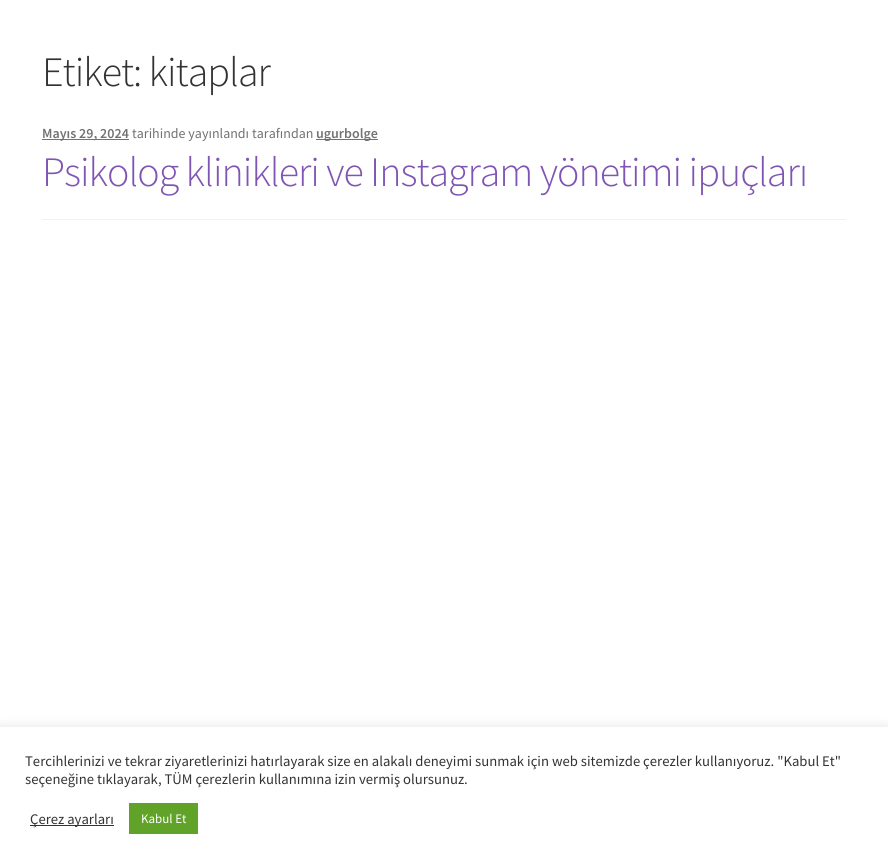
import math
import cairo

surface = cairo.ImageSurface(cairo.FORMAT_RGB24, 888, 864)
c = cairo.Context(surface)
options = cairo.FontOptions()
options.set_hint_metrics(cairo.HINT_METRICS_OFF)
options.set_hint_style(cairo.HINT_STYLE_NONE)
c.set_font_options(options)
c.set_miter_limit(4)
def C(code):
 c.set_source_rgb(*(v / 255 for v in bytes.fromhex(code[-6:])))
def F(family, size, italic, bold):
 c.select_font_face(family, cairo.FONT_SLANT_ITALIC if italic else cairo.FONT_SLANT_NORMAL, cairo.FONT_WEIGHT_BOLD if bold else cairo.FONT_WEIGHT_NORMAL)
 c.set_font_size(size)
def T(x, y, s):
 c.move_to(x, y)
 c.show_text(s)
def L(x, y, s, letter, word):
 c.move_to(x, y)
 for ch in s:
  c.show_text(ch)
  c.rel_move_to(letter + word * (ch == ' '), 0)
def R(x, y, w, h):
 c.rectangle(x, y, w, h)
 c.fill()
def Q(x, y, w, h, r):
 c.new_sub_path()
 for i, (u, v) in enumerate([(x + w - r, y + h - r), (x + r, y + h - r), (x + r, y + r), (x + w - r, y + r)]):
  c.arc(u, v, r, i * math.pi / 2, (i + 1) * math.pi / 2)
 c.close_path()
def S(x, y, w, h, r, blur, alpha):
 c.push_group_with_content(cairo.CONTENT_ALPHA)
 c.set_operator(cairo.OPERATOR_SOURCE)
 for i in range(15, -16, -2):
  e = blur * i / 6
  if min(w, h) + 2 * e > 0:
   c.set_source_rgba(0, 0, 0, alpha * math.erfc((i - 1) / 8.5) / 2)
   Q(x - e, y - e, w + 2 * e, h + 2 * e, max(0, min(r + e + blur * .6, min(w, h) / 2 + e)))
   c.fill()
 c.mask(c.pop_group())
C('ffffff')
c.paint()
F('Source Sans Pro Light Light',41.9,0,0)
C('333333')
L(42,86,'Etiket: kitaplar',-1,0)
C('f2f2f2')
R(42,219,804,1)
C('727272')
R(42,139,87,1)
F('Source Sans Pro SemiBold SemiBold',14,0,0)
T(42,138,'Mayıs 29, 2024')
F('Source Sans Pro',14,0,0)
T(132,138,'tarihinde yayınlandı')
T(252,138,'tarafından')
R(316,139,62,1)
F('Source Sans Pro SemiBold SemiBold',14,0,0)
T(316,138,'ugurbolge')
F('Source Sans Pro Light Light',41.9,0,0)
C('7f54b3')
L(42,186,'Psikolog klinikleri ve Instagram yönetimi ipuçları',-1,0)
C('acabab')
S(0,726,888,137,0,5,.3)
C('ffffff')
R(0,727,888,137)
F('Source Sans Pro',14.67,0,0)
C('333333')
T(25,766,'Tercihlerinizi ve tekrar ziyaretlerinizi hatırlayarak size en alakalı deneyimi sunmak için web sitemizde çerezler kullanıyoruz. "Kabul Et"')
T(25,784,'seçeneğine tıklayarak, TÜM çerezlerin kullanımına izin vermiş olursunuz.')
R(30,825,84,1)
T(30,824,'Çerez ayarları')
C('61a229')
R(129,803,69,31)
F('Source Sans Pro',13,0,0)
C('ffffff')
T(141,823,'Kabul Et')
surface.write_to_png('o.png')
